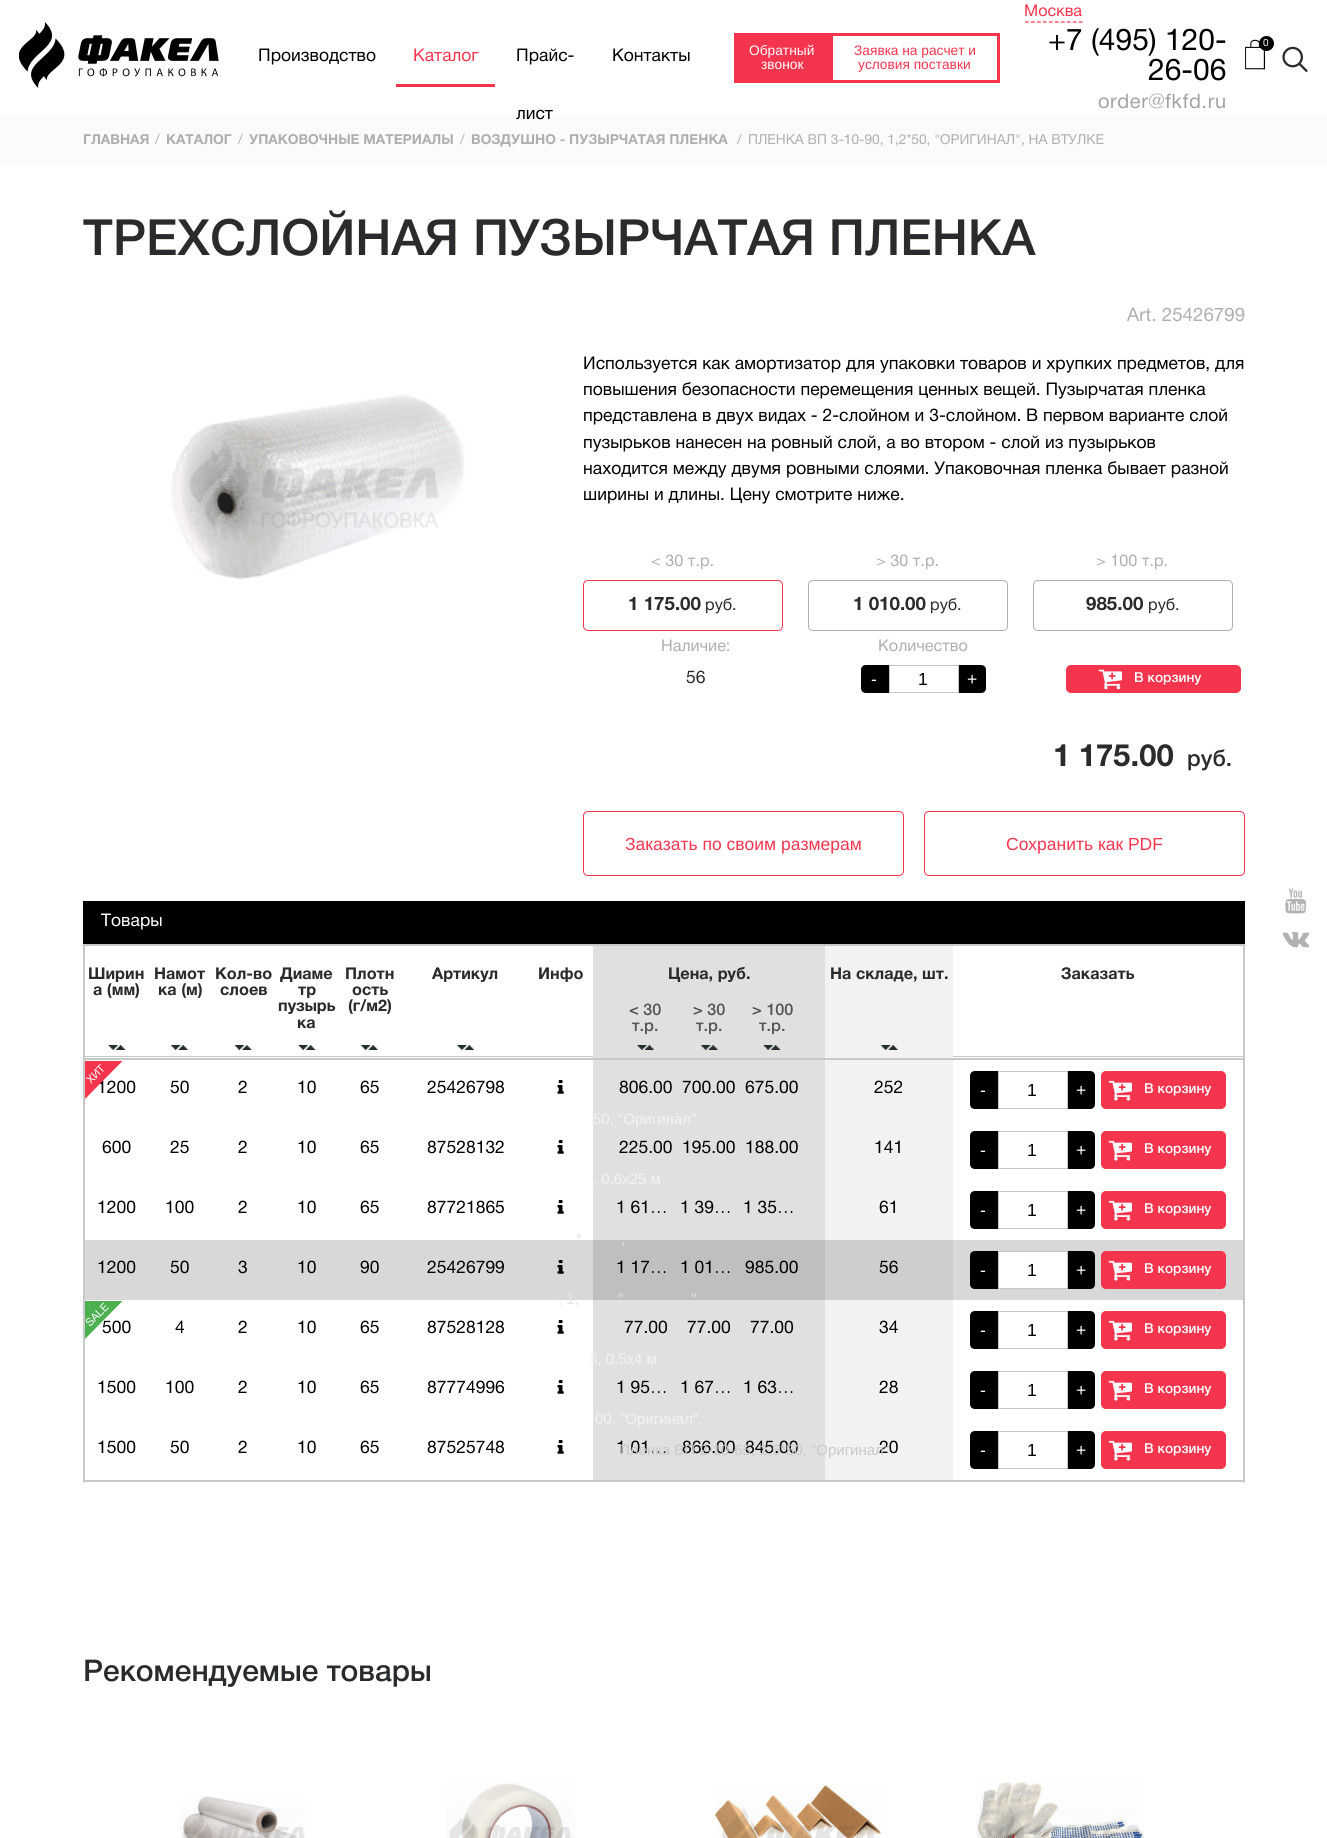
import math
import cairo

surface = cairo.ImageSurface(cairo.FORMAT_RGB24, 1327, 1838)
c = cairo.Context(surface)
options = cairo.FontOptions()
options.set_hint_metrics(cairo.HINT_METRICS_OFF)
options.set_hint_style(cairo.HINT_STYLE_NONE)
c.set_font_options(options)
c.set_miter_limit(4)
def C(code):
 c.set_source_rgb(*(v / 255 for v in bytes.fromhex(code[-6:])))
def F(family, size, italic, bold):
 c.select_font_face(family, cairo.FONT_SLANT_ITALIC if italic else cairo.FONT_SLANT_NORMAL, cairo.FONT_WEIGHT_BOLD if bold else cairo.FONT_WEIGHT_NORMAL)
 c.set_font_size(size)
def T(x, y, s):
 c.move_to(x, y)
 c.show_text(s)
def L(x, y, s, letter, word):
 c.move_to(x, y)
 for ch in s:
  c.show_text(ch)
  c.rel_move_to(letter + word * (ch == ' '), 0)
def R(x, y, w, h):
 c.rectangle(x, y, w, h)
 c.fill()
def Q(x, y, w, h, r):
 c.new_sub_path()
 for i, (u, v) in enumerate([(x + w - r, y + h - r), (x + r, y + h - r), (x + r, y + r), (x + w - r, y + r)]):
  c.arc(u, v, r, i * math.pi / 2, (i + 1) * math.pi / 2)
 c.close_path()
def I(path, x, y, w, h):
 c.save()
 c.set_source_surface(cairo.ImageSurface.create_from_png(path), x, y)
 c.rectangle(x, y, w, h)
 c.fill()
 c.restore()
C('ffffff')
c.paint()
I('1.png',19,22,200,66)
F('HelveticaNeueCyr',17.5,0,0)
C('000000')
T(258,61,'Производство')
C('f5354e')
R(396,84,99,3)
T(413,61,'Каталог')
C('000000')
T(516,61,'Прайс-')
C('fbfbfb')
R(0,115,1327,50)
C('000000')
T(516,119,'лист')
T(612,61,'Контакты')
C('f5354e')
R(734,33,96,50)
F('Liberation Sans',13.75,0,0)
C('ffffff')
T(749,55,'Обратный')
T(761,69,'звонок')
c.rectangle(831.5,34.5,167,47)
C('f5354e')
c.set_line_width(3)
c.stroke()
T(854,55,'Заявка на расчет и')
T(858,69,'условия поставки')
c.new_path()
c.move_to(1025,22)
c.line_to(1082.5,22)
c.set_line_width(1.2)
c.set_dash([3.75,2.23])
c.stroke()
F('HelveticaNeueCyr',16.25,0,0)
T(1024,16,'Москва')
F('HelveticaNeueCyr',30,0,0)
C('000000')
T(1048,50,'+7 (495) 120-')
T(1148,80,'26-06')
F('HelveticaNeueCyr',20,0,0)
C('a3a3a3')
L(1098,108,'order@fkfd.ru',.6,0)
I('2.png',1245,39,21,31)
C('000000')
c.arc(1266.5,43.5,7.5,0,2 * math.pi)
c.fill()
F('HelveticaNeueCyr',10,0,0)
C('ffffff')
T(1263,46,'0')
I('3.png',1282,46,26,26)
I('4.png',1285,888,21,26)
I('5.png',1282,932,28,16)
F('HelveticaNeueCyr',13.75,0,1)
C('afafaf')
T(83,144,'ГЛАВНАЯ')
F('HelveticaNeueCyr',13.75,0,0)
T(155,144,'/')
F('HelveticaNeueCyr',13.75,0,1)
T(166,144,'КАТАЛОГ')
F('HelveticaNeueCyr',13.75,0,0)
T(238,144,'/')
F('HelveticaNeueCyr',13.75,0,1)
T(249,144,'УПАКОВОЧНЫЕ МАТЕРИАЛЫ')
F('HelveticaNeueCyr',13.75,0,0)
T(460,144,'/')
F('HelveticaNeueCyr',13.75,0,1)
T(471,144,'ВОЗДУШНО - ПУЗЫРЧАТАЯ ПЛЕНКА')
F('HelveticaNeueCyr',13.75,0,0)
T(737,144,'/')
T(748,144,'ПЛЕНКА ВП 3-10-90, 1,2*50, "ОРИГИНАЛ", НА ВТУЛКЕ')
F('HelveticaNeueCyr Medium',50,0,0)
C('292b2c')
T(83,255,'ТРЕХСЛОЙНАЯ ПУЗЫРЧАТАЯ ПЛЕНКА')
I('6.png',171,394,294,186)
F('HelveticaNeueCyr',18.75,0,0)
C('afafaf')
T(1127,321,'Art. 25426799')
F('HelveticaNeueCyr',17.5,0,0)
C('000000')
T(583,369,'Используется как амортизатор для упаковки товаров и хрупких предметов, для')
T(583,395,'повышения безопасности перемещения ценных вещей. Пузырчатая пленка')
T(583,421,'представлена в двух видах - 2-слойном и 3-слойном. В первом варианте слой')
T(583,448,'пузырьков нанесен на ровный слой, а во втором - слой из пузырьков')
T(583,474,'находится между двумя ровными слоями. Упаковочная пленка бывает разной')
T(583,500,'ширины и длины. Цену смотрите ниже.')
F('HelveticaNeueCyr',16.25,0,0)
C('afafaf')
T(651,566,'< 30 т.р.')
Q(583.5,580.5,199,50,4.5)
C('f5354e')
c.set_line_width(1)
c.set_dash([])
c.stroke()
F('HelveticaNeueCyr',18.75,0,1)
C('292b2c')
T(628,610,'1 175.00')
F('HelveticaNeueCyr',16.25,0,0)
T(705,610,'руб.')
C('afafaf')
T(876,566,'> 30 т.р.')
Q(808.5,580.5,199,50,4.5)
c.stroke()
F('HelveticaNeueCyr',18.75,0,1)
C('292b2c')
T(853,610,'1 010.00')
F('HelveticaNeueCyr',16.25,0,0)
T(930,610,'руб.')
C('afafaf')
T(1096,566,'> 100 т.р.')
Q(1033.5,580.5,199,50,4.5)
c.stroke()
F('HelveticaNeueCyr',18.75,0,1)
C('292b2c')
T(1086,610,'985.00')
F('HelveticaNeueCyr',16.25,0,0)
T(1148,610,'руб.')
C('afafaf')
T(661,651,'Наличие:')
F('HelveticaNeueCyr',17.5,0,0)
C('292b2c')
T(686,683,'56')
F('HelveticaNeueCyr',16.25,0,0)
C('afafaf')
T(878,651,'Количество')
C('000000')
c.new_path()
c.move_to(866,665)
c.line_to(889,665)
c.line_to(889,693)
c.line_to(866,693)
c.curve_to(863,693,861,691,861,688)
c.line_to(861,670)
c.curve_to(861,667,863,665,866,665)
c.close_path()
c.fill()
F('Liberation Sans',17.5,0,0)
C('ffffff')
T(871,685,'-')
c.rectangle(889.5,665.5,69,27)
C('c7c6c6')
c.stroke()
C('000000')
T(918,685,'1')
c.new_path()
c.move_to(959,665)
c.line_to(981,665)
c.curve_to(984,665,986,667,986,670)
c.line_to(986,688)
c.curve_to(986,691,984,693,981,693)
c.line_to(959,693)
c.close_path()
c.fill()
C('ffffff')
T(967,685,'+')
C('f5354e')
Q(1066.5,665.5,174,27,4.5)
c.fill_preserve()
c.stroke()
I('7.png',1098,669,24,21)
F('HelveticaNeueCyr Medium',13.75,0,0)
C('ffffff')
T(1134,682,'В корзину')
F('HelveticaNeueCyr',31,0,1)
C('292b2c')
T(1053,766,'1 175.00')
F('HelveticaNeueCyr Medium',22.5,0,0)
T(1187,766,'руб.')
Q(583.5,811.5,320,64,4.5)
C('f5354e')
c.stroke()
F('Liberation Sans',17.5,0,0)
T(625,850,'Заказать по своим размерам')
Q(924.5,811.5,320,64,4.5)
c.stroke()
T(1006,850,'Сохранить как PDF')
C('000000')
R(83,901,1162,43)
F('HelveticaNeueCyr',17.5,0,0)
C('ffffff')
T(101,926,'Товары')
c.rectangle(83.5,944.5,1161,115)
C('c8c7c7')
c.stroke()
c.rectangle(84.5,945.5,1159,113)
C('c9c8c8')
c.stroke()
C('c8c7c7')
R(85,1056,1158,1)
I('8.png',108,1045,18,5)
F('HelveticaNeueCyr',16.25,0,1)
C('292b2c')
T(88,979,'Ширин')
T(93,995,'а (мм)')
I('9.png',171,1045,17,5)
T(154,979,'Намот')
T(158,995,'ка (м)')
I('10.png',234,1045,18,5)
T(215,979,'Кол-во')
T(220,995,'слоев')
I('11.png',298,1045,18,5)
T(280,979,'Диаме')
T(298,995,'тр')
T(278,1011,'пузырь')
T(297,1028,'ка')
I('9.png',361,1045,17,5)
T(345,979,'Плотн')
T(352,995,'ость')
T(348,1011,'(г/м2)')
I('12.png',457,1045,17,5)
T(432,979,'Артикул')
T(538,979,'Инфо')
C('e0e0e0')
R(593,946,21,112)
R(614,946,190,50)
C('292b2c')
T(668,979,'Цена, руб.')
C('e0e0e0')
R(804,946,21,112)
C('f2f2f2')
R(825,946,128,112)
I('13.png',881,1045,17,5)
C('292b2c')
T(830,979,'На складе, шт.')
T(1061,979,'Заказать')
C('e0e0e0')
R(614,996,190,62)
I('14.png',637,1045,17,5)
F('HelveticaNeueCyr Medium',16.25,0,0)
C('555555')
T(629,1015,'< 30')
T(632,1031,'т.р.')
I('15.png',701,1045,17,5)
T(693,1015,'> 30')
T(696,1031,'т.р.')
I('16.png',763,1045,18,5)
T(752,1015,'> 100')
T(759,1031,'т.р.')
C('c8c7c7')
R(1244,1060,1,423)
R(83,1481,1162,1)
R(83,1060,1,423)
C('c9c8c8')
R(1243,1060,1,421)
R(84,1480,1160,1)
R(84,1060,1,421)
F('HelveticaNeueCyr',17.5,0,0)
C('000000')
T(97,1093,'1200')
C('f5354e')
c.new_path()
c.move_to(85,1061)
c.line_to(122.5,1061)
c.line_to(85,1099)
c.close_path()
c.fill()
F('HelveticaNeueCyr',11,0,0)
C('ffffff')
c.save()
c.translate(91,1084)
c.rotate(-45 * math.pi / 180)
T(0,0,'ХИТ')
c.restore()
F('HelveticaNeueCyr',17.5,0,0)
C('000000')
T(170,1093,'50')
T(238,1093,'2')
T(297,1093,'10')
T(360,1093,'65')
T(427,1093,'25426798')
C('e0e0e0')
R(593,1060,232,60)
C('000000')
T(619,1093,'806.00')
T(682,1093,'700.00')
T(745,1093,'675.00')
C('f2f2f2')
R(825,1060,128,180)
C('000000')
T(874,1093,'252')
c.new_path()
c.move_to(975,1071)
c.line_to(998,1071)
c.line_to(998,1109)
c.line_to(975,1109)
c.curve_to(972,1109,970,1107,970,1104)
c.line_to(970,1076)
c.curve_to(970,1073,972,1071,975,1071)
c.close_path()
c.fill()
F('Liberation Sans',17.5,0,0)
C('ffffff')
T(980,1096,'-')
c.rectangle(998.5,1071.5,69,37)
C('c7c6c6')
c.stroke()
C('000000')
T(1027,1096,'1')
c.new_path()
c.move_to(1068,1071)
c.line_to(1090,1071)
c.curve_to(1093,1071,1095,1073,1095,1076)
c.line_to(1095,1104)
c.curve_to(1095,1107,1093,1109,1090,1109)
c.line_to(1068,1109)
c.close_path()
c.fill()
C('ffffff')
T(1076,1096,'+')
C('f5354e')
Q(1101.5,1071.5,124,37,4.5)
c.fill_preserve()
c.stroke()
I('17.png',1108,1080,24,21)
F('HelveticaNeueCyr Medium',13.75,0,0)
C('ffffff')
T(1144,1093,'В корзину')
I('18.png',557,1080,7,14)
C('e0e0e0')
R(593,1120,232,60)
F('Liberation Sans',15,0,0)
C('f3f3f3')
T(593,1124,'50, "Оригинал"')
F('HelveticaNeueCyr',17.5,0,0)
C('000000')
T(102,1153,'600')
T(170,1153,'25')
T(238,1153,'2')
T(297,1153,'10')
T(360,1153,'65')
T(427,1153,'87528132')
T(619,1153,'225.00')
T(682,1153,'195.00')
T(745,1153,'188.00')
T(874,1153,'141')
c.new_path()
c.move_to(975,1131)
c.line_to(998,1131)
c.line_to(998,1169)
c.line_to(975,1169)
c.curve_to(972,1169,970,1167,970,1164)
c.line_to(970,1136)
c.curve_to(970,1133,972,1131,975,1131)
c.close_path()
c.fill()
F('Liberation Sans',17.5,0,0)
C('ffffff')
T(980,1156,'-')
c.rectangle(998.5,1131.5,69,37)
C('c7c6c6')
c.stroke()
C('000000')
T(1027,1156,'1')
c.new_path()
c.move_to(1068,1131)
c.line_to(1090,1131)
c.curve_to(1093,1131,1095,1133,1095,1136)
c.line_to(1095,1164)
c.curve_to(1095,1167,1093,1169,1090,1169)
c.line_to(1068,1169)
c.close_path()
c.fill()
C('ffffff')
T(1076,1156,'+')
C('f5354e')
Q(1101.5,1131.5,124,37,4.5)
c.fill_preserve()
c.stroke()
I('17.png',1108,1140,24,21)
F('HelveticaNeueCyr Medium',13.75,0,0)
C('ffffff')
T(1144,1153,'В корзину')
I('18.png',557,1140,7,14)
C('e0e0e0')
R(593,1180,232,60)
F('Liberation Sans',15,0,0)
C('f3f3f3')
T(593,1184,', 0,6х25 м')
F('HelveticaNeueCyr',17.5,0,0)
C('000000')
T(97,1213,'1200')
T(165,1213,'100')
T(238,1213,'2')
T(297,1213,'10')
T(360,1213,'65')
T(427,1213,'87721865')
T(616,1213,'1 61…')
T(680,1213,'1 39…')
T(743,1213,'1 35…')
T(879,1213,'61')
c.new_path()
c.move_to(975,1191)
c.line_to(998,1191)
c.line_to(998,1229)
c.line_to(975,1229)
c.curve_to(972,1229,970,1227,970,1224)
c.line_to(970,1196)
c.curve_to(970,1193,972,1191,975,1191)
c.close_path()
c.fill()
F('Liberation Sans',17.5,0,0)
C('ffffff')
T(980,1216,'-')
c.rectangle(998.5,1191.5,69,37)
C('c7c6c6')
c.stroke()
C('000000')
T(1027,1216,'1')
c.new_path()
c.move_to(1068,1191)
c.line_to(1090,1191)
c.curve_to(1093,1191,1095,1193,1095,1196)
c.line_to(1095,1224)
c.curve_to(1095,1227,1093,1229,1090,1229)
c.line_to(1068,1229)
c.close_path()
c.fill()
C('ffffff')
T(1076,1216,'+')
C('f5354e')
Q(1101.5,1191.5,124,37,4.5)
c.fill_preserve()
c.stroke()
I('17.png',1108,1200,24,21)
F('HelveticaNeueCyr Medium',13.75,0,0)
C('ffffff')
T(1144,1213,'В корзину')
I('18.png',557,1200,7,14)
F('Liberation Sans',15,0,0)
C('e3e3e3')
T(576,1244,'*')
C('bfbfbf')
R(593,1240,232,60)
C('e3e3e3')
T(621,1244,',')
C('d8d8d8')
R(85,1240,508,60)
F('HelveticaNeueCyr',17.5,0,0)
C('000000')
T(97,1273,'1200')
T(170,1273,'50')
T(238,1273,'3')
T(297,1273,'10')
T(360,1273,'90')
T(427,1273,'25426799')
T(616,1273,'1 17…')
T(680,1273,'1 01…')
T(745,1273,'985.00')
C('cecece')
R(825,1240,128,60)
C('000000')
T(879,1273,'56')
C('d8d8d8')
R(953,1240,290,60)
C('000000')
c.new_path()
c.move_to(975,1251)
c.line_to(998,1251)
c.line_to(998,1289)
c.line_to(975,1289)
c.curve_to(972,1289,970,1287,970,1284)
c.line_to(970,1256)
c.curve_to(970,1253,972,1251,975,1251)
c.close_path()
c.fill()
F('Liberation Sans',17.5,0,0)
C('ffffff')
T(980,1276,'-')
c.rectangle(998.5,1251.5,69,37)
c.fill_preserve()
C('c7c6c6')
c.stroke()
C('000000')
T(1027,1276,'1')
c.new_path()
c.move_to(1068,1251)
c.line_to(1090,1251)
c.curve_to(1093,1251,1095,1253,1095,1256)
c.line_to(1095,1284)
c.curve_to(1095,1287,1093,1289,1090,1289)
c.line_to(1068,1289)
c.close_path()
c.fill()
C('ffffff')
T(1076,1276,'+')
C('f5354e')
Q(1101.5,1251.5,124,37,4.5)
c.fill_preserve()
c.stroke()
I('17.png',1108,1260,24,21)
F('HelveticaNeueCyr Medium',13.75,0,0)
C('ffffff')
T(1144,1273,'В корзину')
I('19.png',557,1260,7,14)
F('Liberation Sans',15,0,0)
C('e3e3e3')
T(558,1304,', 1,')
T(618,1304,'"')
T(691,1304,'"')
F('HelveticaNeueCyr',17.5,0,0)
C('000000')
T(102,1333,'500')
C('4caf50')
c.new_path()
c.move_to(85,1301)
c.line_to(122.5,1301)
c.line_to(85,1339)
c.close_path()
c.fill()
F('HelveticaNeueCyr',11,0,0)
C('ffffff')
c.save()
c.translate(90,1327)
c.rotate(-45 * math.pi / 180)
T(0,0,'SALE')
c.restore()
F('HelveticaNeueCyr',17.5,0,0)
C('000000')
T(175,1333,'4')
T(238,1333,'2')
T(297,1333,'10')
T(360,1333,'65')
T(427,1333,'87528128')
C('e0e0e0')
R(593,1300,232,60)
C('000000')
T(624,1333,'77.00')
T(687,1333,'77.00')
T(750,1333,'77.00')
C('f2f2f2')
R(825,1300,128,180)
C('000000')
T(879,1333,'34')
c.new_path()
c.move_to(975,1311)
c.line_to(998,1311)
c.line_to(998,1349)
c.line_to(975,1349)
c.curve_to(972,1349,970,1347,970,1344)
c.line_to(970,1316)
c.curve_to(970,1313,972,1311,975,1311)
c.close_path()
c.fill()
F('Liberation Sans',17.5,0,0)
C('ffffff')
T(980,1336,'-')
c.rectangle(998.5,1311.5,69,37)
C('c7c6c6')
c.stroke()
C('000000')
T(1027,1336,'1')
c.new_path()
c.move_to(1068,1311)
c.line_to(1090,1311)
c.curve_to(1093,1311,1095,1313,1095,1316)
c.line_to(1095,1344)
c.curve_to(1095,1347,1093,1349,1090,1349)
c.line_to(1068,1349)
c.close_path()
c.fill()
C('ffffff')
T(1076,1336,'+')
C('f5354e')
Q(1101.5,1311.5,124,37,4.5)
c.fill_preserve()
c.stroke()
I('17.png',1108,1320,24,21)
F('HelveticaNeueCyr Medium',13.75,0,0)
C('ffffff')
T(1144,1333,'В корзину')
I('18.png',557,1320,7,14)
C('e0e0e0')
R(593,1360,232,60)
F('Liberation Sans',15,0,0)
C('f3f3f3')
T(589,1364,'5, 0,5х4 м')
F('HelveticaNeueCyr',17.5,0,0)
C('000000')
T(97,1393,'1500')
T(165,1393,'100')
T(238,1393,'2')
T(297,1393,'10')
T(360,1393,'65')
T(427,1393,'87774996')
T(616,1393,'1 95…')
T(680,1393,'1 67…')
T(743,1393,'1 63…')
T(879,1393,'28')
c.new_path()
c.move_to(975,1371)
c.line_to(998,1371)
c.line_to(998,1409)
c.line_to(975,1409)
c.curve_to(972,1409,970,1407,970,1404)
c.line_to(970,1376)
c.curve_to(970,1373,972,1371,975,1371)
c.close_path()
c.fill()
F('Liberation Sans',17.5,0,0)
C('ffffff')
T(980,1396,'-')
c.rectangle(998.5,1371.5,69,37)
C('c7c6c6')
c.stroke()
C('000000')
T(1027,1396,'1')
c.new_path()
c.move_to(1068,1371)
c.line_to(1090,1371)
c.curve_to(1093,1371,1095,1373,1095,1376)
c.line_to(1095,1404)
c.curve_to(1095,1407,1093,1409,1090,1409)
c.line_to(1068,1409)
c.close_path()
c.fill()
C('ffffff')
T(1076,1396,'+')
C('f5354e')
Q(1101.5,1371.5,124,37,4.5)
c.fill_preserve()
c.stroke()
I('17.png',1108,1380,24,21)
F('HelveticaNeueCyr Medium',13.75,0,0)
C('ffffff')
T(1144,1393,'В корзину')
I('18.png',557,1380,7,14)
C('e0e0e0')
R(593,1420,232,60)
F('Liberation Sans',15,0,0)
C('f3f3f3')
T(595,1424,'00, "Оригинал",')
F('HelveticaNeueCyr',17.5,0,0)
C('000000')
T(97,1453,'1500')
T(170,1453,'50')
T(238,1453,'2')
T(297,1453,'10')
T(360,1453,'65')
T(427,1453,'87525748')
T(616,1453,'1 01…')
T(682,1453,'866.00')
T(745,1453,'845.00')
T(879,1453,'20')
c.new_path()
c.move_to(975,1431)
c.line_to(998,1431)
c.line_to(998,1469)
c.line_to(975,1469)
c.curve_to(972,1469,970,1467,970,1464)
c.line_to(970,1436)
c.curve_to(970,1433,972,1431,975,1431)
c.close_path()
c.fill()
F('Liberation Sans',17.5,0,0)
C('ffffff')
T(980,1456,'-')
c.rectangle(998.5,1431.5,69,37)
C('c7c6c6')
c.stroke()
C('000000')
T(1027,1456,'1')
c.new_path()
c.move_to(1068,1431)
c.line_to(1090,1431)
c.curve_to(1093,1431,1095,1433,1095,1436)
c.line_to(1095,1464)
c.curve_to(1095,1467,1093,1469,1090,1469)
c.line_to(1068,1469)
c.close_path()
c.fill()
C('ffffff')
T(1076,1456,'+')
C('f5354e')
Q(1101.5,1431.5,124,37,4.5)
c.fill_preserve()
c.stroke()
I('17.png',1108,1440,24,21)
F('HelveticaNeueCyr Medium',13.75,0,0)
C('ffffff')
T(1144,1453,'В корзину')
I('18.png',557,1440,7,14)
F('Liberation Sans',15,0,0)
C('c8c8c8')
T(619,1455,'Пленка ВП 2-10-65, 1,5*50, "Оригинал"')
F('HelveticaNeueCyr Medium',30,0,0)
C('292b2c')
T(83,1681,'Рекомендуемые товары')
I('20.png',179,1796,126,42)
I('21.png',446,1783,129,55)
I('22.png',713,1784,168,54)
I('23.png',976,1782,168,56)
surface.write_to_png('o.png')
